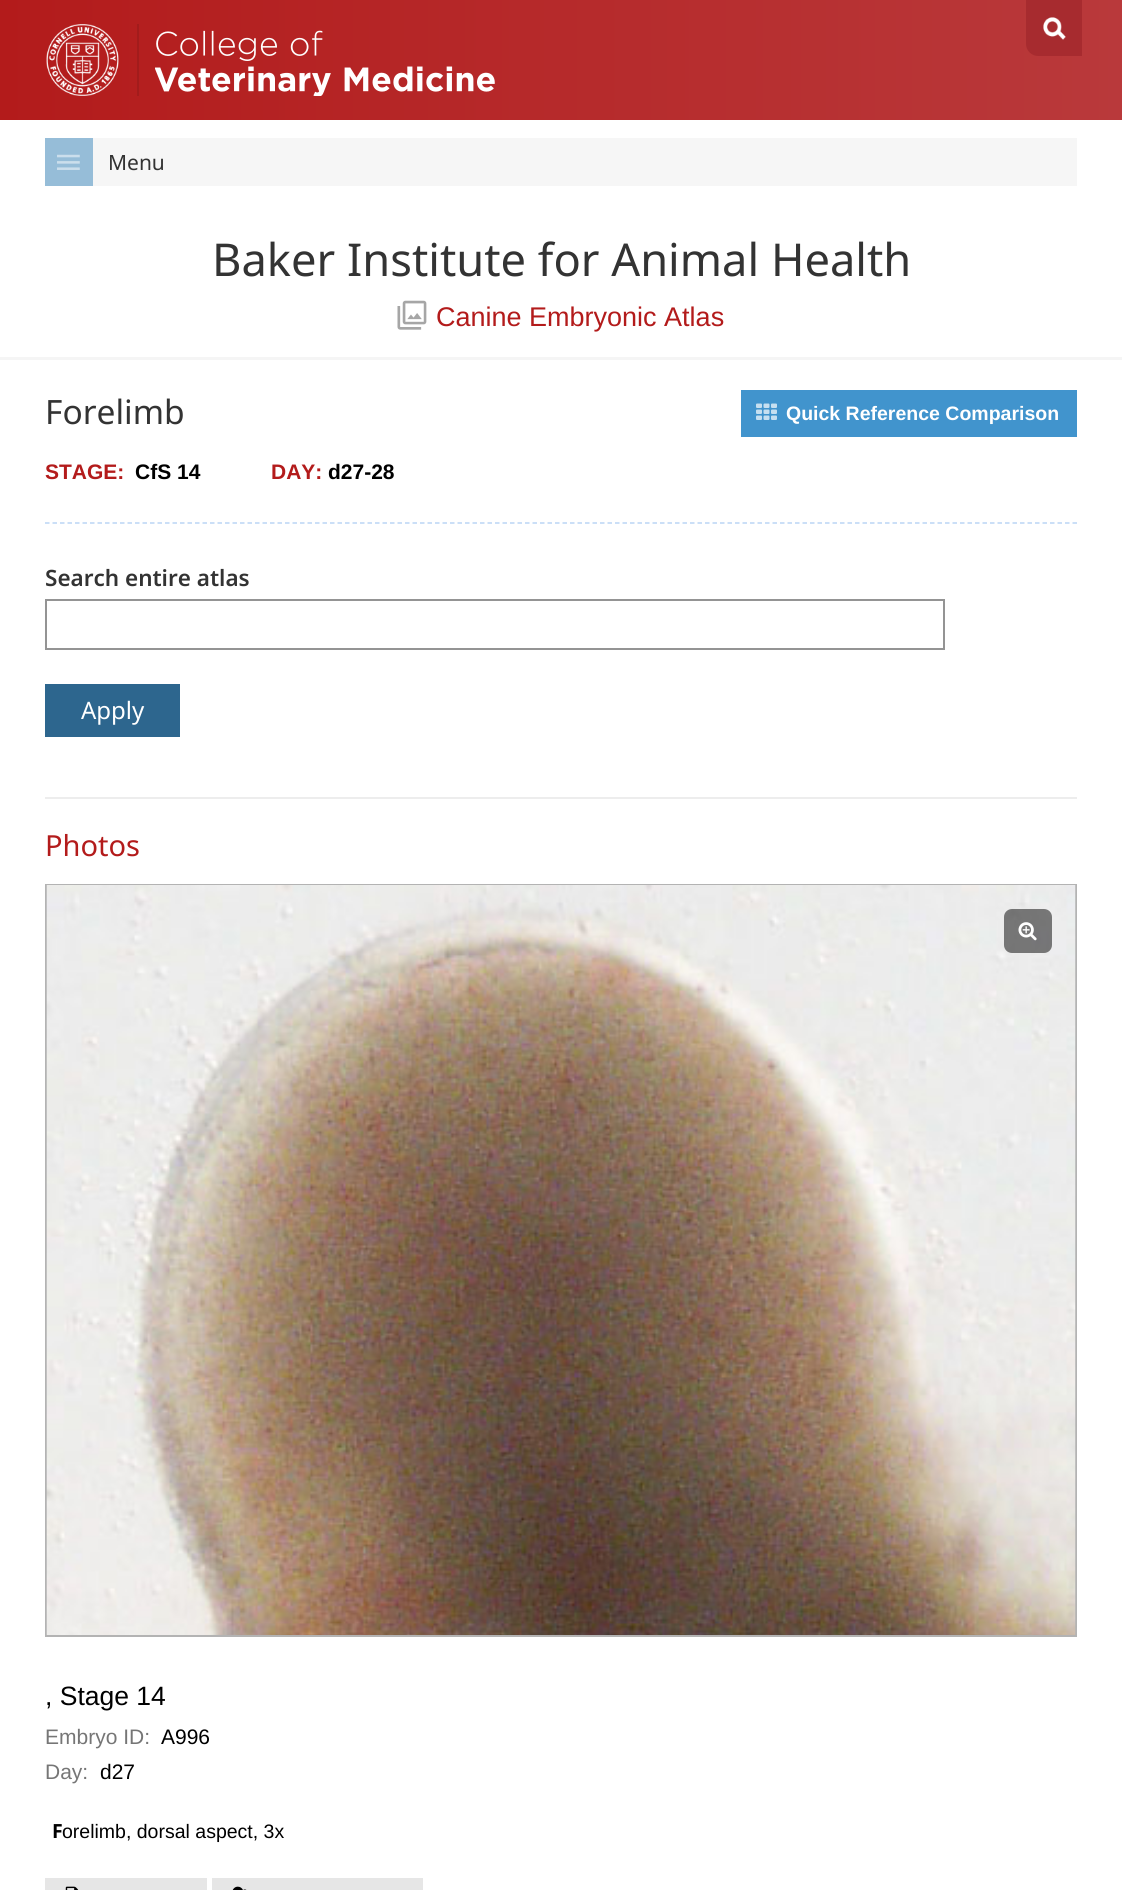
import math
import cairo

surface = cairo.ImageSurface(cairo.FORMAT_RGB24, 1122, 1890)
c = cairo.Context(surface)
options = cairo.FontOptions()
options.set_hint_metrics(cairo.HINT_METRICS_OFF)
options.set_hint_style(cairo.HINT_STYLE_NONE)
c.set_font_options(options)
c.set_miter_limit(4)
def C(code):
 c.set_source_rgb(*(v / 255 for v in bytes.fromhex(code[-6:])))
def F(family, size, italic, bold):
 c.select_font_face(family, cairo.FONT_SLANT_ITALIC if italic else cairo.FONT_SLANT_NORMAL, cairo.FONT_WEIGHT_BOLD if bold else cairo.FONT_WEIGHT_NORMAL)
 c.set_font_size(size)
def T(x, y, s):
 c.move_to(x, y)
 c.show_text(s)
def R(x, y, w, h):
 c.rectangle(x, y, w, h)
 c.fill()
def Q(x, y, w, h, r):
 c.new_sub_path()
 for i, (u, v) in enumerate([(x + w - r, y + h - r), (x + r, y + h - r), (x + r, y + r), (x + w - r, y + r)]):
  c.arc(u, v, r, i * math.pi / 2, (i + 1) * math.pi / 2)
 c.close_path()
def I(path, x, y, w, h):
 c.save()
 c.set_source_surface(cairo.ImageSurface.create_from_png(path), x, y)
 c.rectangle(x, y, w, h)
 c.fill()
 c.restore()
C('ffffff')
c.paint()
gradient = cairo.LinearGradient(0,60,1122,60)
gradient.add_color_stop_rgba(0,0.702,0.106,0.106,1)
gradient.add_color_stop_rgba(1,0.725,0.224,0.231,1)
c.set_source(gradient)
R(0,0,1122,120)
I('1.png',46,24,73,72)
C('a21c1c')
R(137,24,2,72)
I('2.png',155,30,340,66)
C('a72b2f')
c.new_path()
c.move_to(1026,0)
c.line_to(1082,0)
c.line_to(1082,56)
c.line_to(1038,56)
c.curve_to(1031.5,56,1026,50.5,1026,44)
c.close_path()
c.fill()
I('3.png',1043,17,23,23)
C('f6f6f6')
R(93,138,984,48)
C('96bdd8')
R(45,138,48,48)
I('4.png',57,154,23,16)
F('Noto Sans',21,0,0)
C('333333')
T(108,170,'Menu')
C('f5f5f5')
R(0,357,1122,3)
F('Noto Sans',45.25,0,0)
C('333333')
T(212,276,'Baker Institute for Animal Health')
I('5.png',397,300,30,30)
F('Liberation Sans',27,0,0)
C('b31b1b')
T(436,326,'Canine Embryonic Atlas')
F('Noto Sans',33.5,0,0)
C('333333')
T(45,424,'Forelimb')
C('4194cd')
R(741,390,336,47)
I('6.png',756,403,21,17)
F('Liberation Sans',19.5,0,1)
C('ffffff')
T(786,420,'Quick Reference Comparison')
c.new_path()
c.move_to(45,523)
c.line_to(1077,523)
C('bad5f4')
c.set_line_width(1.5)
c.set_dash([4.5,3])
c.stroke()
F('Liberation Sans',21,0,1)
C('b31b1b')
T(45,479,'STAGE:')
C('000000')
T(135,479,'CfS 14')
C('b31b1b')
T(271,479,'DAY:')
C('000000')
T(328,479,'d27-28')
C('ededed')
R(45,797,1032,2)
F('Noto Sans SemiBold',22.5,0,0)
C('333333')
T(45,586,'Search entire atlas')
c.rectangle(46,600,898,49)
C('949494')
c.set_line_width(2)
c.set_dash([])
c.stroke()
C('2d668e')
R(45,684,135,53)
F('Noto Sans',24,0,0)
C('ffffff')
T(81,719,'Apply')
F('Noto Sans',29,0,0)
C('b31b1b')
T(45,856,'Photos')
c.rectangle(46,885,1030,751)
C('b3b3b3')
c.stroke()
I('7.png',46,885,1030,750)
c.set_source_rgba(0,0,0,0.5)
Q(1004,909,48,44,8)
c.fill()
I('8.png',1018,922,19,19)
F('Liberation Sans',26.5,0,0)
C('000000')
T(45,1705,', Stage 14')
F('Liberation Sans',21,0,0)
C('767676')
T(45,1744,'Embryo ID:')
C('000000')
T(161,1744,'A996')
C('767676')
T(45,1779,'Day:')
C('000000')
T(100,1779,'d27')
F('Noto Sans',19.5,0,1)
T(52,1838,'F')
F('Liberation Sans',19.5,0,0)
T(62,1838,'orelimb, dorsal aspect, 3x')
C('e6e6e6')
R(45,1878,162,12)
I('9.png',65,1886,14,4)
R(212,1878,211,12)
I('10.png',232,1886,15,4)
surface.write_to_png('o.png')
